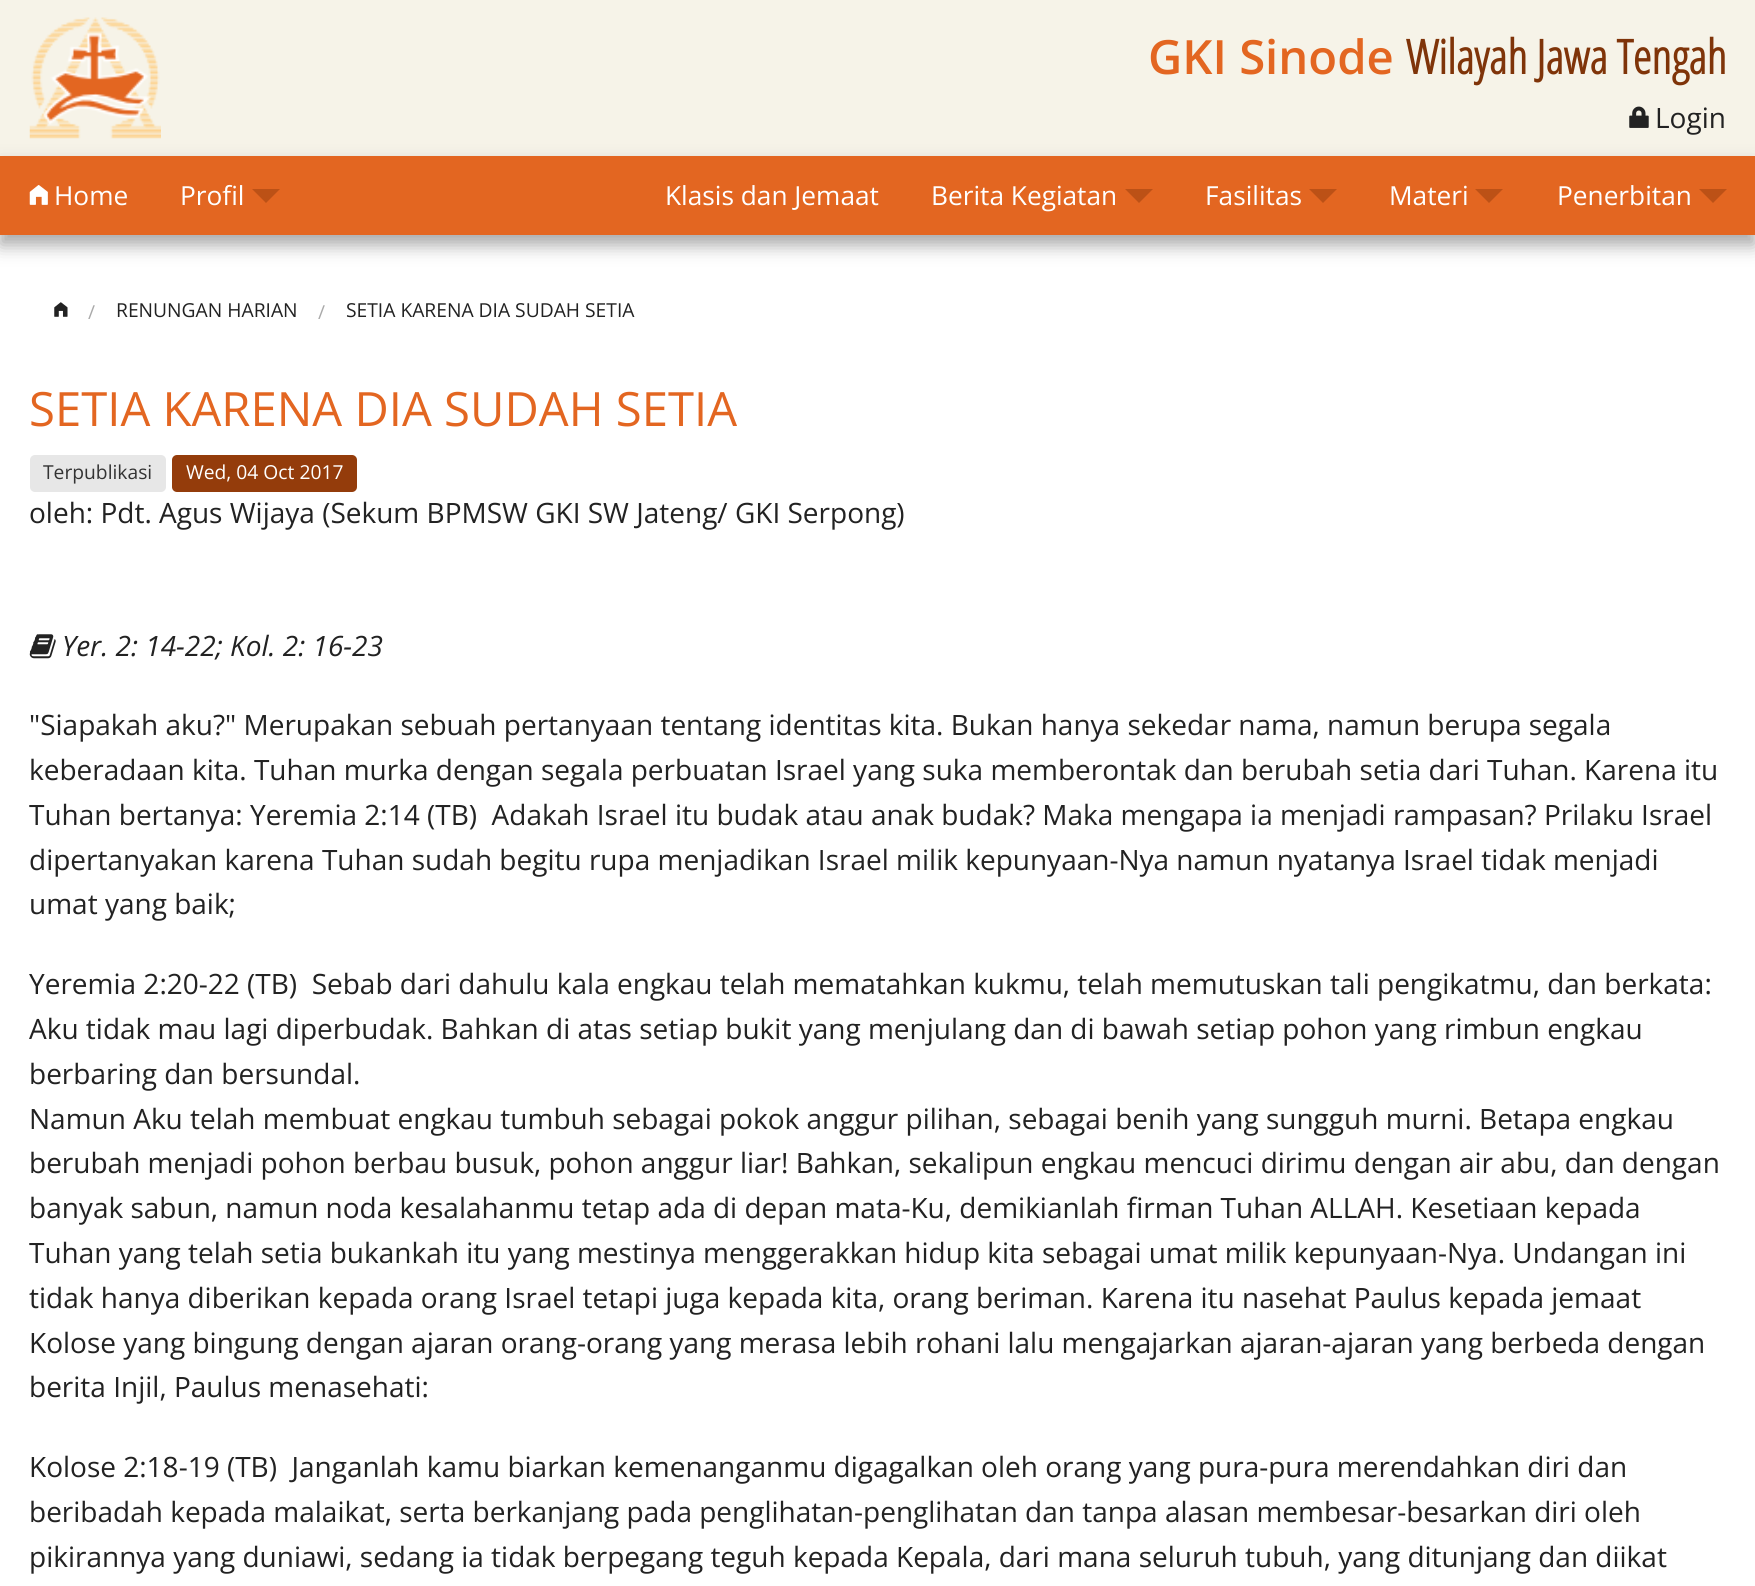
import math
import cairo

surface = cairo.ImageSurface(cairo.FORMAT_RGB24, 1755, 1586)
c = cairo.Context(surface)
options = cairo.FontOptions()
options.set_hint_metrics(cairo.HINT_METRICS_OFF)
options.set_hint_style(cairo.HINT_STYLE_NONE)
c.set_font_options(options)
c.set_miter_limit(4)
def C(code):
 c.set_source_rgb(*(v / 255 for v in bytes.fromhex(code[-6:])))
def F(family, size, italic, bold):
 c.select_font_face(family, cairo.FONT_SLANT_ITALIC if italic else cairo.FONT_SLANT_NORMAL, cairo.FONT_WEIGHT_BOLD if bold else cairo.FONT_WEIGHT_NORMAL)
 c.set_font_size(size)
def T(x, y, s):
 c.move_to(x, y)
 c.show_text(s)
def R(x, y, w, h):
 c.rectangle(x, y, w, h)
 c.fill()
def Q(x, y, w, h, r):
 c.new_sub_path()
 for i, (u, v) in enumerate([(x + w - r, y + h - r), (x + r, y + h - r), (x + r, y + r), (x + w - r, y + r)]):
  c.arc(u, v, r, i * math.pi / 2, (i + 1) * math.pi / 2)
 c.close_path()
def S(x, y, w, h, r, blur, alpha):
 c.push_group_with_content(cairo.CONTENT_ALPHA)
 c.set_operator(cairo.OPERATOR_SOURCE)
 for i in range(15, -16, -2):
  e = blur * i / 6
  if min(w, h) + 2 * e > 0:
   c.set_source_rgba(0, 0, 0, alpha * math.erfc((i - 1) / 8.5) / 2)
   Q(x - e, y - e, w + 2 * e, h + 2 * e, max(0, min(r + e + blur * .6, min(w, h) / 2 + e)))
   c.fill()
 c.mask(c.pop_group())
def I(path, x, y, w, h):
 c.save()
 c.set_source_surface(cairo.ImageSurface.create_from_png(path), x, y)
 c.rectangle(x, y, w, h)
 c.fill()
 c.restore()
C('ffffff')
c.paint()
C('f6f3e8')
R(0,0,1755,156)
C('a7a7a7')
S(0,166,1755,79,0,9,1)
I('1.png',29,17,132,122)
F('Open Sans SemiBold',47.25,0,0)
C('e36621')
T(1148,74,'GKI Sinode')
F('Open Sans Condensed',47.25,0,1)
C('7f3409')
T(1406,74,'Wilayah Jawa Tengah')
I('2.png',1629,106,20,22)
F('Open Sans',28,0,0)
C('222222')
T(1655,128,'Login')
C('e36621')
R(0,156,1755,79)
I('3.png',29,185,19,20)
F('Open Sans',26.25,0,0)
C('ffffff')
T(54,205,'Home')
T(180,205,'Profil')
C('bc5116')
c.new_path()
c.move_to(252,189)
c.line_to(280,189)
c.line_to(266,203)
c.close_path()
c.fill()
C('ffffff')
T(665,205,'Klasis dan Jemaat')
T(931,205,'Berita Kegiatan')
C('bc5116')
c.new_path()
c.move_to(1125,189)
c.line_to(1153,189)
c.line_to(1139,203)
c.close_path()
c.fill()
C('ffffff')
T(1205,205,'Fasilitas')
C('bc5116')
c.new_path()
c.move_to(1309,189)
c.line_to(1337,189)
c.line_to(1323,203)
c.close_path()
c.fill()
C('ffffff')
T(1389,205,'Materi')
C('bc5116')
c.new_path()
c.move_to(1475,189)
c.line_to(1503,189)
c.line_to(1489,203)
c.close_path()
c.fill()
C('ffffff')
T(1557,205,'Penerbitan')
C('bc5116')
c.new_path()
c.move_to(1699,189)
c.line_to(1727,189)
c.line_to(1713,203)
c.close_path()
c.fill()
I('4.png',54,302,14,15)
F('Open Sans',19.25,0,0)
C('aaaaaa')
T(88,319,'/')
C('222222')
T(116,317,'RENUNGAN HARIAN')
C('aaaaaa')
T(318,319,'/')
C('222222')
T(346,317,'SETIA KARENA DIA SUDAH SETIA')
F('Open Sans',47.25,0,0)
C('e36621')
T(29,426,'SETIA KARENA DIA SUDAH SETIA')
C('e7e7e7')
Q(30,455,136,37,5)
c.fill()
F('Open Sans',19.25,0,0)
C('333333')
T(43,479,'Terpublikasi')
C('943c0b')
Q(172,455,185,37,5)
c.fill()
C('ffffff')
T(186,479,'Wed, 04 Oct 2017')
F('Open Sans',28,0,0)
C('222222')
T(29,523,'oleh: Pdt. Agus Wijaya (Sekum BPMSW GKI SW Jateng/ GKI Serpong)')
I('5.png',29,634,27,25)
F('Open Sans',28,1,0)
T(62,656,'Yer. 2: 14-22; Kol. 2: 16-23')
F('Open Sans',28,0,0)
T(29,735,'"Siapakah aku?" Merupakan sebuah pertanyaan tentang identitas kita. Bukan hanya sekedar nama, namun berupa segala')
T(29,780,'keberadaan kita. Tuhan murka dengan segala perbuatan Israel yang suka memberontak dan berubah setia dari Tuhan. Karena itu')
T(29,825,'Tuhan bertanya: Yeremia 2:14 (TB)  Adakah Israel itu budak atau anak budak? Maka mengapa ia menjadi rampasan? Prilaku Israel')
T(29,870,'dipertanyakan karena Tuhan sudah begitu rupa menjadikan Israel milik kepunyaan-Nya namun nyatanya Israel tidak menjadi')
T(29,914,'umat yang baik;')
T(29,994,'Yeremia 2:20-22 (TB)  Sebab dari dahulu kala engkau telah mematahkan kukmu, telah memutuskan tali pengikatmu, dan berkata:')
T(29,1039,'Aku tidak mau lagi diperbudak. Bahkan di atas setiap bukit yang menjulang dan di bawah setiap pohon yang rimbun engkau')
T(29,1084,'berbaring dan bersundal.')
T(29,1129,'Namun Aku telah membuat engkau tumbuh sebagai pokok anggur pilihan, sebagai benih yang sungguh murni. Betapa engkau')
T(29,1173,'berubah menjadi pohon berbau busuk, pohon anggur liar! Bahkan, sekalipun engkau mencuci dirimu dengan air abu, dan dengan')
T(29,1218,'banyak sabun, namun noda kesalahanmu tetap ada di depan mata-Ku, demikianlah firman Tuhan ALLAH. Kesetiaan kepada')
T(29,1263,'Tuhan yang telah setia bukankah itu yang mestinya menggerakkan hidup kita sebagai umat milik kepunyaan-Nya. Undangan ini')
T(29,1308,'tidak hanya diberikan kepada orang Israel tetapi juga kepada kita, orang beriman. Karena itu nasehat Paulus kepada jemaat')
T(29,1353,'Kolose yang bingung dengan ajaran orang-orang yang merasa lebih rohani lalu mengajarkan ajaran-ajaran yang berbeda dengan')
T(29,1397,'berita Injil, Paulus menasehati:')
T(29,1477,'Kolose 2:18-19 (TB)  Janganlah kamu biarkan kemenanganmu digagalkan oleh orang yang pura-pura merendahkan diri dan')
T(29,1522,'beribadah kepada malaikat, serta berkanjang pada penglihatan-penglihatan dan tanpa alasan membesar-besarkan diri oleh')
T(29,1567,'pikirannya yang duniawi, sedang ia tidak berpegang teguh kepada Kepala, dari mana seluruh tubuh, yang ditunjang dan diikat')
surface.write_to_png('o.png')
